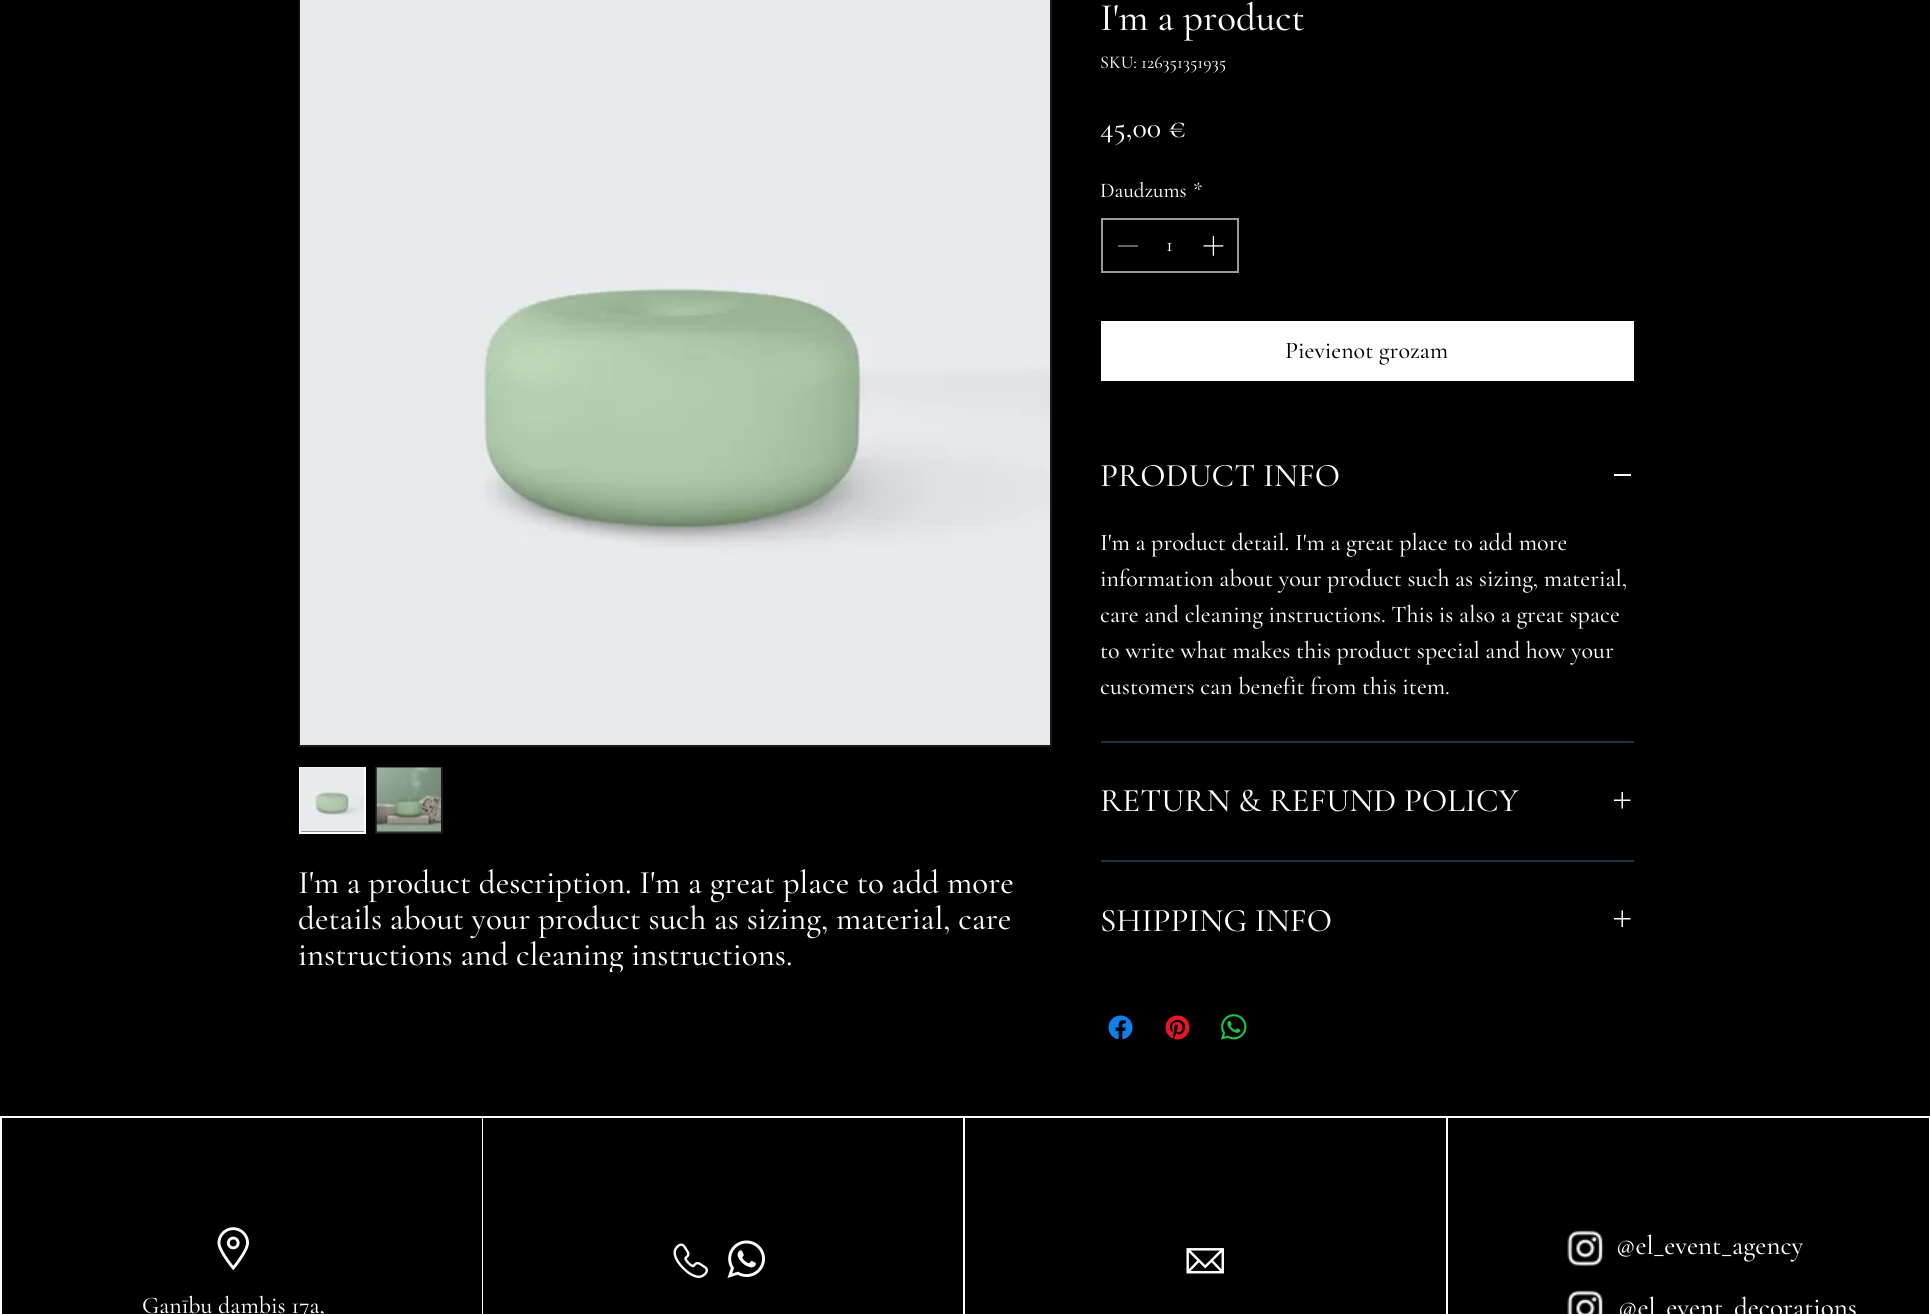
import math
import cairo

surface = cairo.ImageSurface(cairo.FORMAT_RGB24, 1930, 1314)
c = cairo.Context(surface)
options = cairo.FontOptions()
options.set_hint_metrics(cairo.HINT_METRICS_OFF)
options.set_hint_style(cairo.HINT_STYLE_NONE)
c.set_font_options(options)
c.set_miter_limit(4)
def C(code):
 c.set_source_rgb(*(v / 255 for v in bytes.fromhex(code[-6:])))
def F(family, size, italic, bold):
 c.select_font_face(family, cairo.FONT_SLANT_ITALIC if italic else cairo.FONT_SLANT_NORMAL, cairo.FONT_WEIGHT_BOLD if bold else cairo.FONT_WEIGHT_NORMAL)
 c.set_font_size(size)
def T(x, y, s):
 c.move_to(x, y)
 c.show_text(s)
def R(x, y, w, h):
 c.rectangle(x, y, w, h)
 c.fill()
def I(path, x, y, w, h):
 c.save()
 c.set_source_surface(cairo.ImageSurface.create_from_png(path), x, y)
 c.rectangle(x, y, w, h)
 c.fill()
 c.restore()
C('000000')
c.paint()
c.rectangle(300,-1,751,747)
C('1b1b1b')
c.stroke()
I('1.png',300,0,750,745)
c.rectangle(300,768,65,65)
C('ffffff')
c.stroke()
I('2.png',300,767,65,65)
c.rectangle(376,768,66,65)
C('1b1b1b')
c.stroke()
I('3.png',376,767,65,66)
F('Cormorant Garamond Medium',33,0,0)
C('ffffff')
T(298,893,'I\'m a product description. I\'m a great place to add more')
T(298,929,'details about your product such as sizing, material, care')
c.save()
c.rectangle(299,864,750,108)
c.clip()
T(298,965,'instructions and cleaning instructions.')
c.restore()
F('Cormorant Garamond Medium',39,0,0)
T(1100,30,'I\'m a product')
F('Cormorant Garamond Medium',18,0,0)
T(1100,68,'SKU: 126351351935')
F('Cormorant Garamond Medium',30,0,0)
T(1100,137,'45,00 €')
F('Cormorant Garamond Medium',21,0,0)
T(1100,197,'Daudzums')
T(1193,197,'*')
c.rectangle(1102,219,136,53)
C('999999')
c.stroke()
C('646464')
R(1118,245,20,2)
C('ffffff')
T(1166,251,'1')
I('4.png',1203,236,21,20)
R(1101,321,533,60)
F('Cormorant Garamond Medium',24,0,0)
C('000000')
T(1285,358,'Pievienot grozam')
C('1e3443')
R(1101,741,533,2)
F('Cormorant Garamond Medium',33,0,0)
C('ffffff')
T(1100,486,'PRODUCT INFO')
R(1614,474,17,2)
F('Cormorant Garamond Medium',24,0,0)
T(1100,550,'I\'m a product detail. I\'m a great place to add more')
T(1100,586,'information about your product such as sizing, material,')
T(1100,622,'care and cleaning instructions. This is also a great space')
T(1100,658,'to write what makes this product special and how your')
T(1100,694,'customers can benefit from this item.')
C('1e3443')
R(1101,860,533,2)
F('Cormorant Garamond Medium',33,0,0)
C('ffffff')
T(1100,811,'RETURN & REFUND POLICY')
I('5.png',1614,792,17,17)
T(1100,931,'SHIPPING INFO')
I('6.png',1614,910,17,17)
I('7.png',1108,1015,25,25)
I('8.png',1165,1015,25,25)
I('9.png',1221,1014,26,26)
R(0,1116,1930,198)
C('000000')
R(2,1118,480,196)
I('10.png',217,1227,32,44)
F('Cormorant Garamond Medium',24,0,0)
C('ffffff')
T(142,1313,'Ganību dambis 17a,')
C('000000')
R(483,1118,480,196)
I('11.png',673,1243,35,35)
I('12.png',727,1240,38,38)
R(965,1118,481,196)
I('13.png',1186,1248,38,26)
R(1448,1118,481,196)
I('14.png',1567,1230,37,36)
I('15.png',1567,1290,37,24)
F('Cormorant Garamond Medium',27,0,0)
C('ffffff')
T(1616,1254,'@el_event_agency')
T(1618,1316,'@el_event_decorations')
surface.write_to_png('o.png')
